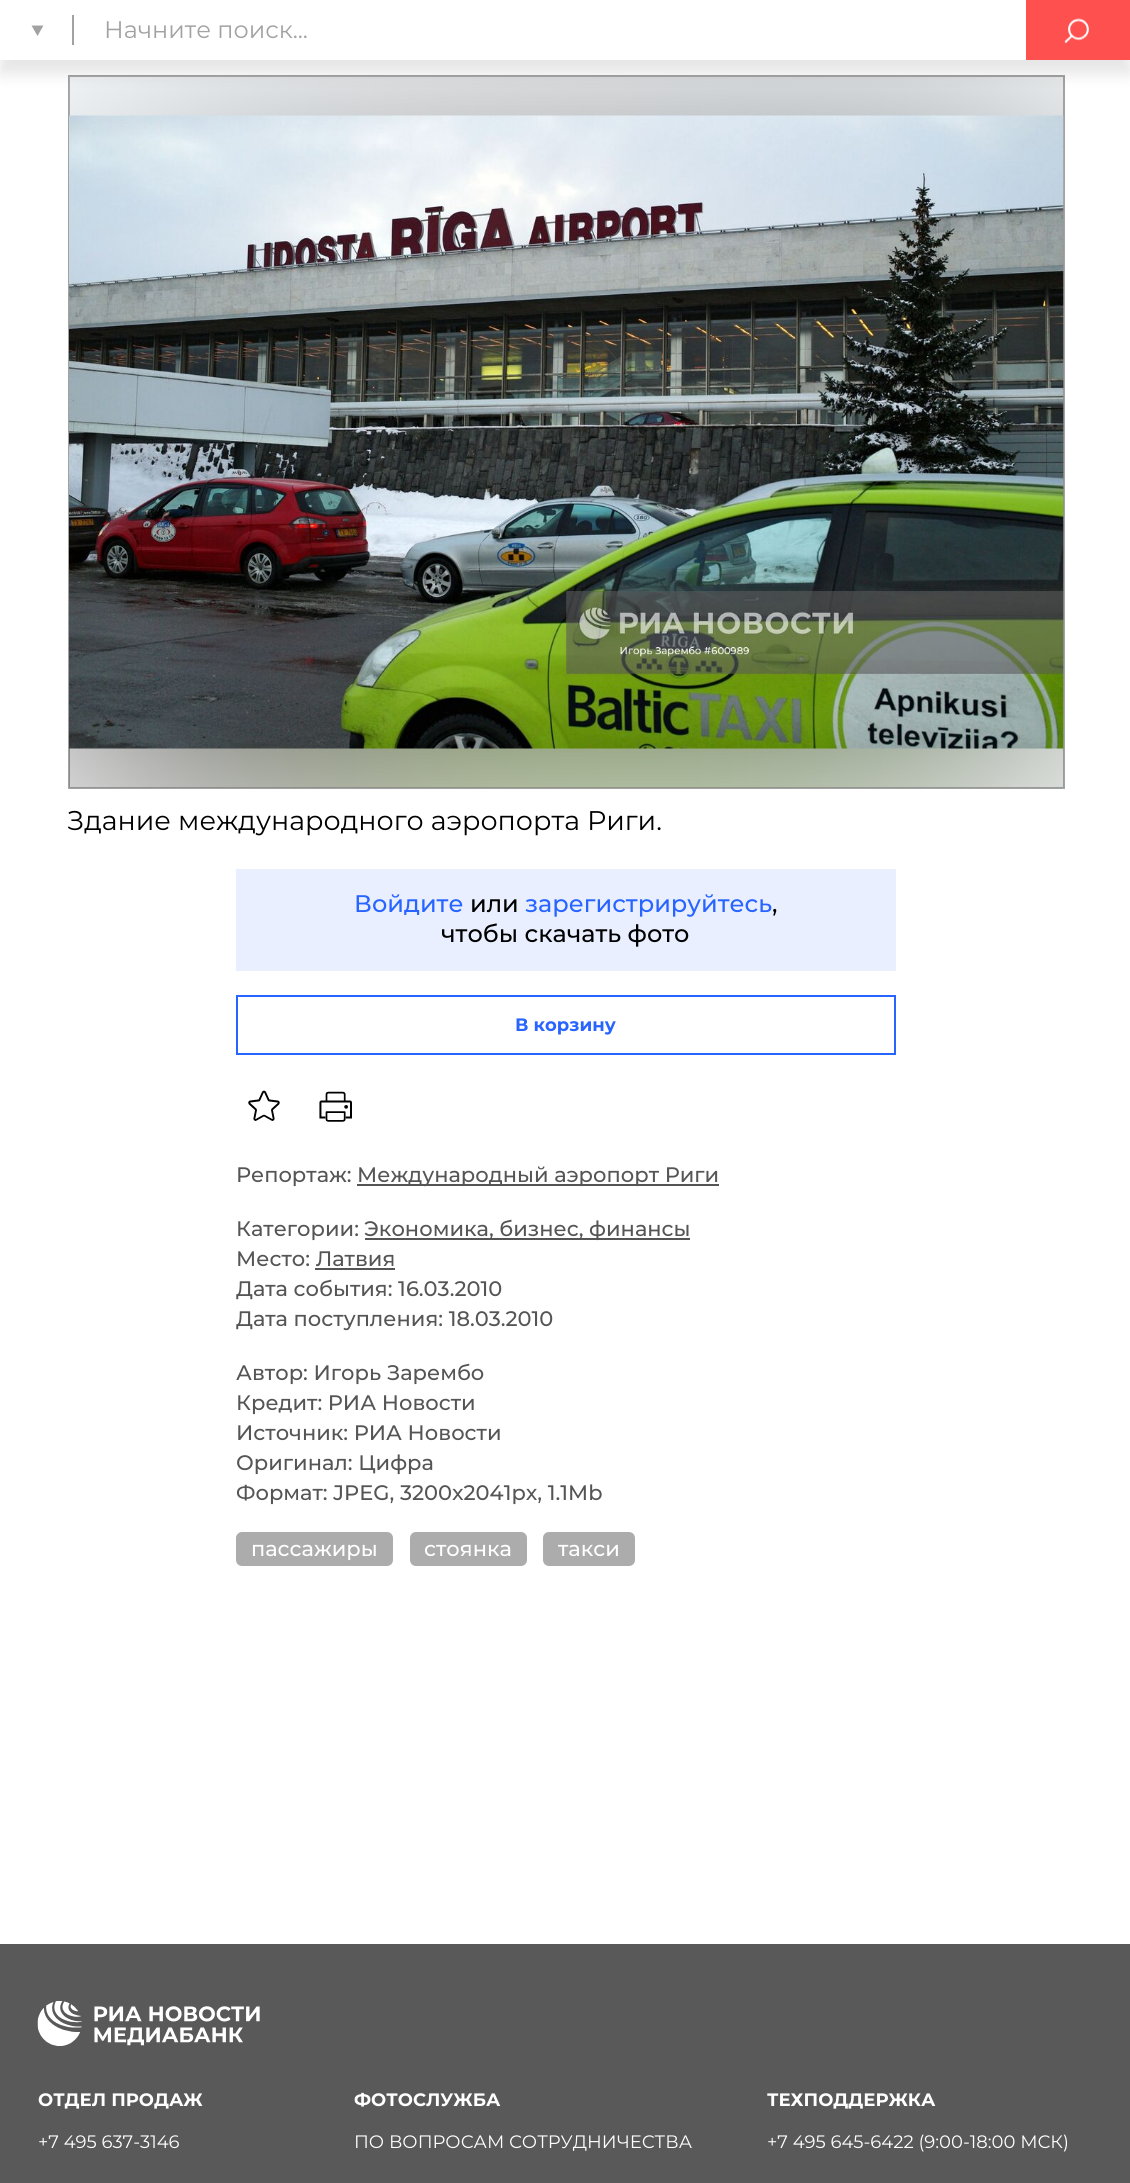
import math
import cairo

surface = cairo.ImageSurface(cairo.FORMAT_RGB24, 1130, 2183)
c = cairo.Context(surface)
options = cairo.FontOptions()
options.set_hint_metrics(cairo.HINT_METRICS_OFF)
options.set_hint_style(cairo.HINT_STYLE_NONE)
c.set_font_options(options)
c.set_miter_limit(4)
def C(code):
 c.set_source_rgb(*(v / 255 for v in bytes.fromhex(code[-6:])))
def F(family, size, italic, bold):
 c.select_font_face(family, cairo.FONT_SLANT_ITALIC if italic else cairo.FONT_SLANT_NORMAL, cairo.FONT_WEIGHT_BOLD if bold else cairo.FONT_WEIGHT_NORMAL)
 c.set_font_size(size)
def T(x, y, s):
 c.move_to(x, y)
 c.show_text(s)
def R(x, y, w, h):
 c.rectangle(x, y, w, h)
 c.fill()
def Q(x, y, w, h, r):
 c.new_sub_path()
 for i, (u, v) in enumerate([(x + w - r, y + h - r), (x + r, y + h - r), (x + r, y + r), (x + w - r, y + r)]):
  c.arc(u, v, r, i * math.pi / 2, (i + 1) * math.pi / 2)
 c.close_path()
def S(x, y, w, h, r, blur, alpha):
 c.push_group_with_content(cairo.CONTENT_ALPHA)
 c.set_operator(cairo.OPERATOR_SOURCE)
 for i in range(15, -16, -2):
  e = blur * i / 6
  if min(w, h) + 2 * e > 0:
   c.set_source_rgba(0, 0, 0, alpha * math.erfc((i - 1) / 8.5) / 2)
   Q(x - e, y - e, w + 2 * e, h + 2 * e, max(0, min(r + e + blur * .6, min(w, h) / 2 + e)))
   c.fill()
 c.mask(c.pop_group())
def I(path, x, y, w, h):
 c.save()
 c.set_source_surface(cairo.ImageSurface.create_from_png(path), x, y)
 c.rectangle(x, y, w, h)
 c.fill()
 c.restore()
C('ffffff')
c.paint()
c.rectangle(69,76,995,712)
C('a3a2a2')
c.stroke()
I('2.png',69,76,995,712)
C('000000')
S(0,-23,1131,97,0,7.5,.1)
C('ffffff')
R(0,0,1026,60)
C('a3a2a2')
c.new_path()
c.move_to(31.5,25.5)
c.line_to(43.5,25.5)
c.line_to(37.5,36)
c.close_path()
c.fill()
R(72,15,2,30)
F('Montserrat',24,0,0)
T(104,38,'Начните поиск...')
C('ff5050')
R(1026,0,104,60)
I('1.png',1064,18,25,26)
I('3.png',69,115,995,634)
F('Montserrat',27,0,0)
C('000000')
T(67,830,'Здание международного аэропорта Риги.')
C('e9efff')
R(236,869,660,102)
F('Montserrat Medium',24,0,0)
C('2864ff')
T(354,912,'Войдите')
C('000000')
T(470,912,'или')
C('2864ff')
T(525,912,'зарегистрируйтесь')
C('000000')
T(772,912,',')
T(441,942,'чтобы скачать фото')
c.rectangle(237,996,658,58)
C('2864ff')
c.stroke()
F('Montserrat',18,0,1)
T(515,1031,'В корзину')
I('4.png',248,1090,32,31)
I('5.png',319,1091,33,31)
F('Montserrat Medium',21,0,0)
C('555555')
T(236,1182,'Репортаж:')
R(357,1184,362,2)
T(357,1182,'Международный аэропорт Риги')
T(236,1236,'Категории:')
R(365,1238,325,2)
T(364,1236,'Экономика, бизнес, финансы')
T(236,1266,'Место: Латвия')
R(315,1268,80,2)
T(236,1296,'Дата события: 16.03.2010')
T(236,1326,'Дата поступления: 18.03.2010')
T(236,1380,'Автор: Игорь Зарембо')
T(236,1410,'Кредит: РИА Новости')
T(236,1440,'Источник: РИА Новости')
T(236,1470,'Оригинал: Цифра')
T(236,1500,'Формат: JPEG, 3200x2041px, 1.1Mb')
C('acacac')
Q(236,1532,157,34,6)
c.fill()
C('ffffff')
T(251,1556,'пассажиры')
C('acacac')
Q(410,1532,117,34,6)
c.fill()
C('ffffff')
T(424,1556,'стоянка')
C('acacac')
Q(543,1532,92,34,6)
c.fill()
C('ffffff')
T(558,1556,'такси')
C('595959')
R(0,1944,1130,239)
I('6.png',37,2001,223,45)
F('Montserrat',18,0,1)
C('ffffff')
T(38,2106,'ОТДЕЛ ПРОДАЖ')
F('Montserrat',18,0,0)
T(38,2148,'+7 495 637-3146')
F('Montserrat',18,0,1)
T(354,2106,'ФОТОСЛУЖБА')
F('Montserrat',18,0,0)
T(354,2148,'ПО ВОПРОСАМ СОТРУДНИЧЕСТВА')
F('Montserrat',18,0,1)
T(767,2106,'ТЕХПОДДЕРЖКА')
F('Montserrat',18,0,0)
T(767,2148,'+7 495 645-6422 (9:00-18:00 МСК)')
surface.write_to_png('o.png')
